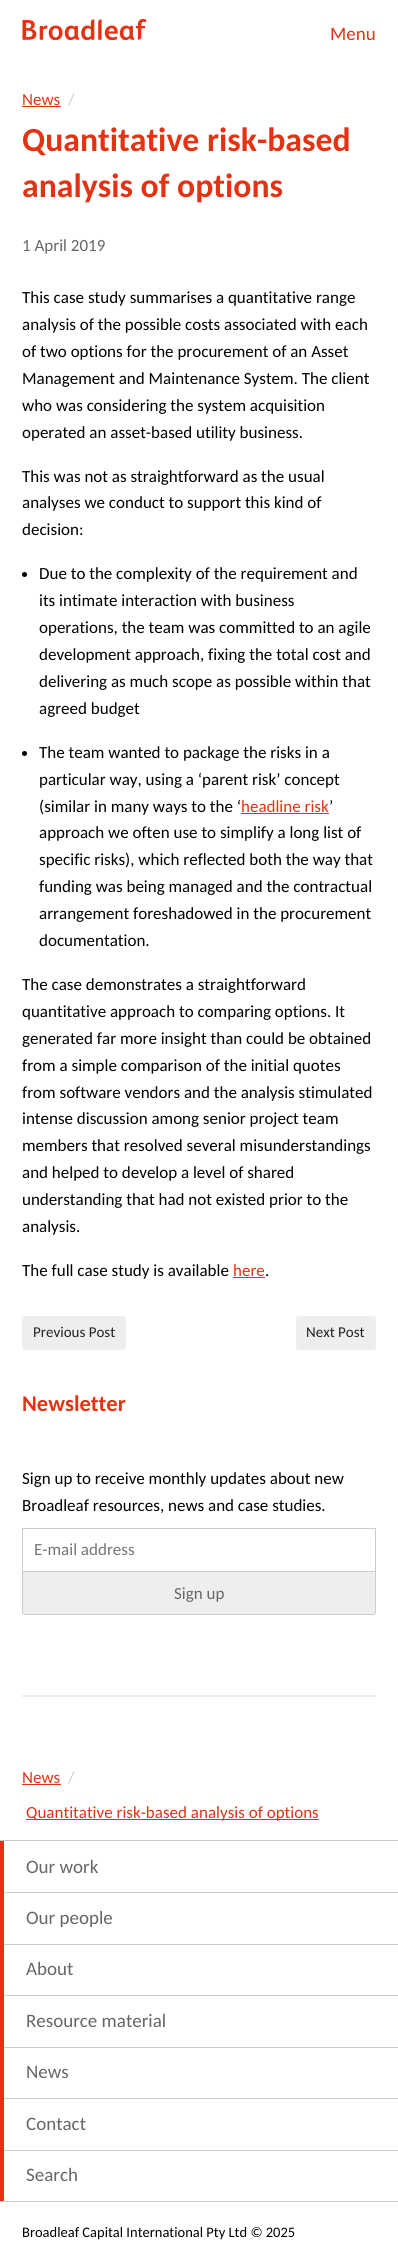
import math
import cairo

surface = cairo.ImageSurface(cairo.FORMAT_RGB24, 398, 2241)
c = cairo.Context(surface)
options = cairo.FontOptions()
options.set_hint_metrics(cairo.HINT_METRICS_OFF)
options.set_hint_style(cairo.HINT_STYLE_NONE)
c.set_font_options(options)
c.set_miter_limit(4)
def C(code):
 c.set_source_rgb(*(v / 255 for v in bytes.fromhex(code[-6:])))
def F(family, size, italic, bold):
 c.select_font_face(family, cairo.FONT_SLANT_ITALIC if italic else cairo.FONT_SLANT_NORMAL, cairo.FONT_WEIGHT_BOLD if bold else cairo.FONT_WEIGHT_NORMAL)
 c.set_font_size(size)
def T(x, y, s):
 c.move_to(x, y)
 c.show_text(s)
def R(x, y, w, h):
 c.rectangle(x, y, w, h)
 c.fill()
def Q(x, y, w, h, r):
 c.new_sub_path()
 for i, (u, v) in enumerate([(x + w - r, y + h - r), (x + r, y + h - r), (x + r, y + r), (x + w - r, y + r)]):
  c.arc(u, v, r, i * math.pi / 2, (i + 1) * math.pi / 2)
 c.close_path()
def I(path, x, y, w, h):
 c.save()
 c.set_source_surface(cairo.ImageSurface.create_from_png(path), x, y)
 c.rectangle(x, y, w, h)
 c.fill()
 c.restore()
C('ffffff')
c.paint()
I('1.png',22,19,125,22)
F('Carlito',19,0,0)
C('e53212')
T(330,40,'Menu')
F('Carlito',17,0,0)
T(22,105,'News')
R(22,106,39,1)
C('cccccc')
T(68,105,'/')
F('Carlito',33.75,0,1)
C('e53212')
T(22,151,'Quantitative risk-based')
T(22,197,'analysis of options')
F('Carlito',17,0,0)
C('666666')
T(22,251,'1 April 2019')
C('000000')
T(22,303,'This case study summarises a quantitative range')
T(22,330,'analysis of the possible costs associated with each')
T(22,357,'of two options for the procurement of an Asset')
T(22,384,'Management and Maintenance System. The client')
T(22,411,'who was considering the system acquisition')
T(22,438,'operated an asset-based utility business.')
T(22,482,'This was not as straightforward as the usual')
T(22,508,'analyses we conduct to support this kind of')
T(22,535,'decision:')
c.new_path()
c.arc(24.5,574.5,2.5,0,2 * math.pi)
c.fill()
T(39,579,'Due to the complexity of the requirement and')
T(39,606,'its intimate interaction with business')
T(39,633,'operations, the team was committed to an agile')
T(39,660,'development approach, fixing the total cost and')
T(39,687,'delivering as much scope as possible within that')
T(39,714,'agreed budget')
c.new_path()
c.arc(24.5,753.5,2.5,0,2 * math.pi)
c.fill()
T(39,758,'The team wanted to package the risks in a')
T(39,785,'particular way, using a ‘parent risk’ concept')
T(39,812,'(similar in many ways to the ‘')
C('e53212')
T(241,812,'headline risk')
R(241,813,88,1)
C('000000')
T(329,812,'’')
T(39,838,'approach we often use to simplify a long list of')
T(39,865,'specific risks), which reflected both the way that')
T(39,892,'funding was being managed and the contractual')
T(39,919,'arrangement foreshadowed in the procurement')
T(39,946,'documentation.')
T(22,990,'The case demonstrates a straightforward')
T(22,1017,'quantitative approach to comparing options. It')
T(22,1044,'generated far more insight than could be obtained')
T(22,1071,'from a simple comparison of the initial quotes')
T(22,1098,'from software vendors and the analysis stimulated')
T(22,1124,'intense discussion among senior project team')
T(22,1151,'members that resolved several misunderstandings')
T(22,1178,'and helped to develop a level of shared')
T(22,1205,'understanding that had not existed prior to the')
T(22,1232,'analysis.')
T(22,1276,'The full case study is available')
C('e53212')
T(233,1276,'here')
R(233,1277,32,1)
C('000000')
T(265,1276,'.')
C('eeeeee')
Q(22,1316,104,34,3)
c.fill()
F('Carlito',15,0,0)
C('222222')
T(33,1337,'Previous Post')
C('eeeeee')
Q(296,1316,80,34,3)
c.fill()
C('222222')
T(306,1337,'Next Post')
F('Carlito',22.5,0,1)
C('e53212')
T(22,1411,'Newsletter')
F('Carlito',17,0,0)
C('000000')
T(22,1484,'Sign up to receive monthly updates about new')
T(22,1511,'Broadleaf resources, news and case studies.')
C('cccccc')
R(22,1528,354,1)
R(375,1528,1,43)
R(22,1528,1,43)
C('757575')
T(34,1555,'E-mail address')
C('eeeeee')
c.new_path()
c.move_to(22.5,1571.5)
c.line_to(375.5,1571.5)
c.line_to(375.5,1612)
c.curve_to(375.5,1613.5,374.5,1614.5,373,1614.5)
c.line_to(25,1614.5)
c.curve_to(23.5,1614.5,22.5,1613.5,22.5,1612)
c.close_path()
c.fill_preserve()
C('cccccc')
c.set_line_width(1)
c.stroke()
C('666666')
T(174,1599,'Sign up')
C('eeeeee')
R(22,1695,354,2)
C('e53212')
T(22,1783,'News')
R(22,1784,39,1)
C('cccccc')
T(68,1783,'/')
C('e53212')
R(26,1819,293,1)
T(26,1818,'Quantitative risk-based analysis of options')
C('cccccc')
R(0,1840,398,1)
R(0,1892,398,1)
C('e53212')
R(0,1841,4,103)
F('Carlito',19,0,0)
C('666666')
T(26,1873,'Our work')
C('cccccc')
R(0,1944,398,1)
C('666666')
T(26,1924,'Our people')
C('cccccc')
R(0,1995,398,1)
C('e53212')
R(0,1944,4,103)
C('666666')
T(26,1975,'About')
C('cccccc')
R(0,2047,398,1)
C('666666')
T(26,2027,'Resource material')
C('cccccc')
R(0,2098,398,1)
C('e53212')
R(0,2047,4,103)
C('666666')
T(26,2078,'News')
C('cccccc')
R(0,2150,398,1)
C('666666')
T(26,2130,'Contact')
C('cccccc')
R(0,2201,398,1)
C('e53212')
R(0,2150,4,51)
C('666666')
T(26,2181,'Search')
F('Carlito',14.5,0,0)
C('000000')
T(22,2237,'Broadleaf Capital International Pty Ltd © 2025')
surface.write_to_png('o.png')
